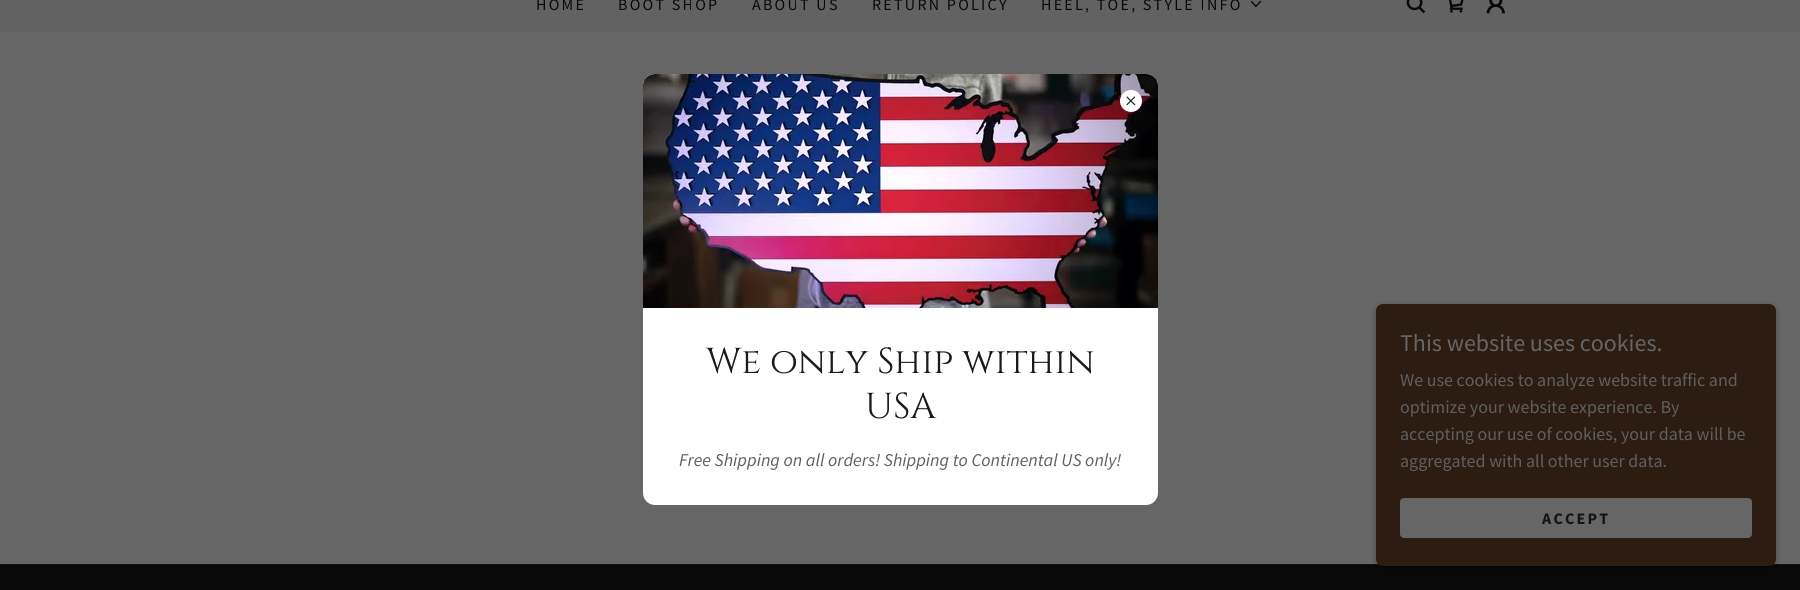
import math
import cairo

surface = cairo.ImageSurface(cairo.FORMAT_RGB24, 1800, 590)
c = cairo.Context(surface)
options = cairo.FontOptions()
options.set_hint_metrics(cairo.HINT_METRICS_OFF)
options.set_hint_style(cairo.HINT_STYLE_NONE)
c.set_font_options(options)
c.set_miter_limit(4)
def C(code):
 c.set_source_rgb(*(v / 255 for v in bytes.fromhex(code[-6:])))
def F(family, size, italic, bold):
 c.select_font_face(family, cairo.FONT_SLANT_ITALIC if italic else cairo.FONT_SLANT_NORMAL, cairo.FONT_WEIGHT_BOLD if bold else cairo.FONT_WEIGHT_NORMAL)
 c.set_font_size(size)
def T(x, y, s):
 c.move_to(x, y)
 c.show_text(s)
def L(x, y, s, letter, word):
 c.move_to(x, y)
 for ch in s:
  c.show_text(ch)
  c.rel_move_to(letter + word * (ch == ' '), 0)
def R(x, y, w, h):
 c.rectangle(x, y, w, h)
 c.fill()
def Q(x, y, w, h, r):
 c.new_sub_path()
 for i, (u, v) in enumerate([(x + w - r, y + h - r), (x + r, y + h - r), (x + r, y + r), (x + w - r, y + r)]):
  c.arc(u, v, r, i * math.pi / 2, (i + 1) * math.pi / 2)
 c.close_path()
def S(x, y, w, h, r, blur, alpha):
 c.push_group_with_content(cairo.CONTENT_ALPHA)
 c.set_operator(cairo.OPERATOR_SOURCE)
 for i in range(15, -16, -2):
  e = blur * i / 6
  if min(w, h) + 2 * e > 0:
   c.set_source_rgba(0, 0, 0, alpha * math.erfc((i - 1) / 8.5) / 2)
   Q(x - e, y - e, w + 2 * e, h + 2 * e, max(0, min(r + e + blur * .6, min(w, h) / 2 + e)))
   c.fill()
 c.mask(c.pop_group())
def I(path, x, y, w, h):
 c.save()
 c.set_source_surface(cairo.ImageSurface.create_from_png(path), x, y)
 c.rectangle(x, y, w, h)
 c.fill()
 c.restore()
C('090909')
c.paint()
C('626262')
R(0,0,1800,32)
F('Source Sans Pro',16,0,0)
C('080808')
L(536,10,'HOME',2.25,0)
L(618,10,'BOOT SHOP',2.25,0)
L(752,10,'ABOUT US',2.25,0)
L(872,10,'RETURN POLICY',2.25,0)
L(1041,10,'HEEL, TOE, STYLE INFO',2.25,0)
I('1.png',1250,0,12,8)
I('2.png',1406,0,20,14)
I('3.png',1449,0,15,13)
I('4.png',1486,0,19,14)
C('666666')
R(0,32,1800,532)
C('ffffff')
Q(643,74,515,431,12)
c.fill()
I('6.png',643,74,515,234)
c.arc(1131,101,11,0,2 * math.pi)
c.fill()
I('5.png',1126,96,10,10)
F('Cinzel',36,0,0)
C('1b1b1b')
T(706,373,'We only Ship within')
T(865,418,'USA')
F('Source Sans Pro',18,1,0)
C('5f5f5f')
T(679,466,'Free Shipping on all orders! Shipping to Continental US only!')
C('111111')
R(0,564,1800,1)
C('000000')
S(1376,306,400,262,7,3,.3)
C('2c1c12')
Q(1376,304,400,262,7)
c.fill()
F('Source Sans Pro',24,0,0)
C('666666')
T(1400,351,'This website uses cookies.')
F('Source Sans Pro',18,0,0)
C('5f5f5f')
T(1400,386,'We use cookies to analyze website traffic and')
T(1400,413,'optimize your website experience. By')
T(1400,440,'accepting our use of cookies, your data will be')
T(1400,467,'aggregated with all other user data.')
C('666666')
Q(1400,498,352,40,4)
c.fill()
F('Source Sans Pro',16,0,1)
C('131313')
L(1542,524,'ACCEPT',2.25,0)
surface.write_to_png('o.png')
